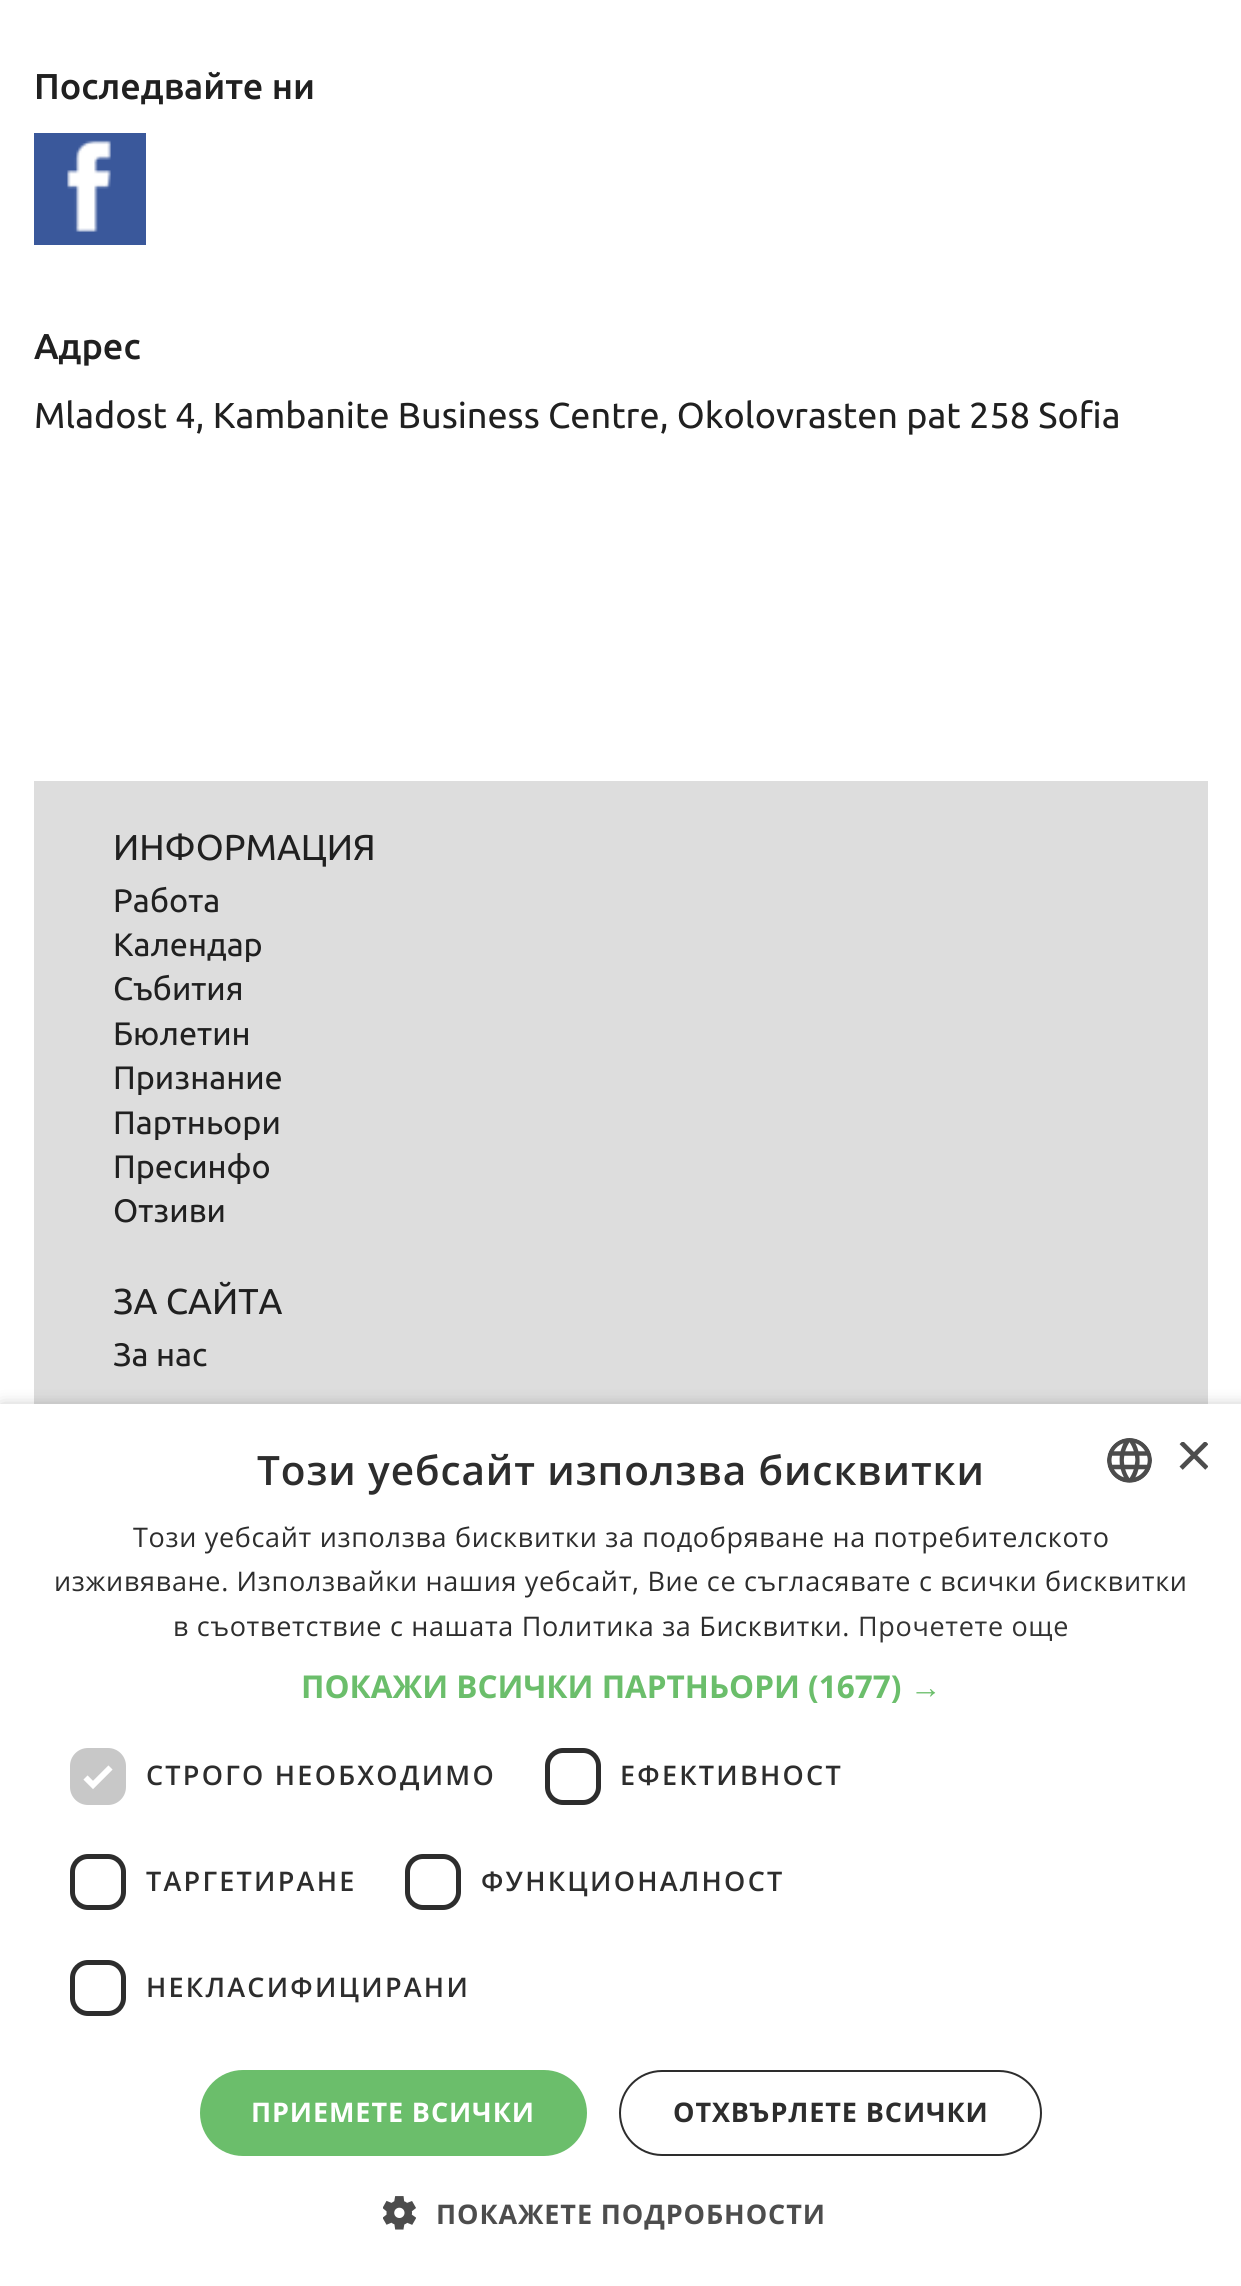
import math
import cairo

surface = cairo.ImageSurface(cairo.FORMAT_RGB24, 1241, 2286)
c = cairo.Context(surface)
options = cairo.FontOptions()
options.set_hint_metrics(cairo.HINT_METRICS_OFF)
options.set_hint_style(cairo.HINT_STYLE_NONE)
c.set_font_options(options)
c.set_miter_limit(4)
def C(code):
 c.set_source_rgb(*(v / 255 for v in bytes.fromhex(code[-6:])))
def F(family, size, italic, bold):
 c.select_font_face(family, cairo.FONT_SLANT_ITALIC if italic else cairo.FONT_SLANT_NORMAL, cairo.FONT_WEIGHT_BOLD if bold else cairo.FONT_WEIGHT_NORMAL)
 c.set_font_size(size)
def T(x, y, s):
 c.move_to(x, y)
 c.show_text(s)
def L(x, y, s, letter, word):
 c.move_to(x, y)
 for ch in s:
  c.show_text(ch)
  c.rel_move_to(letter + word * (ch == ' '), 0)
def R(x, y, w, h):
 c.rectangle(x, y, w, h)
 c.fill()
def Q(x, y, w, h, r):
 c.new_sub_path()
 for i, (u, v) in enumerate([(x + w - r, y + h - r), (x + r, y + h - r), (x + r, y + r), (x + w - r, y + r)]):
  c.arc(u, v, r, i * math.pi / 2, (i + 1) * math.pi / 2)
 c.close_path()
def S(x, y, w, h, r, blur, alpha):
 c.push_group_with_content(cairo.CONTENT_ALPHA)
 c.set_operator(cairo.OPERATOR_SOURCE)
 for i in range(15, -16, -2):
  e = blur * i / 6
  if min(w, h) + 2 * e > 0:
   c.set_source_rgba(0, 0, 0, alpha * math.erfc((i - 1) / 8.5) / 2)
   Q(x - e, y - e, w + 2 * e, h + 2 * e, max(0, min(r + e + blur * .6, min(w, h) / 2 + e)))
   c.fill()
 c.mask(c.pop_group())
def I(path, x, y, w, h):
 c.save()
 c.set_source_surface(cairo.ImageSurface.create_from_png(path), x, y)
 c.rectangle(x, y, w, h)
 c.fill()
 c.restore()
C('ffffff')
c.paint()
F('Ubuntu Medium',36,0,0)
C('202020')
T(34,99,'Последвайте ни')
C('3a589b')
R(34,133,112,112)
I('1.png',67,140,44,92)
C('202020')
T(34,359,'Адрес')
F('Ubuntu',36,0,0)
T(34,428,'Mladost 4, Kambanite Business Centre, Okolovrasten pat 258 Sofia')
C('dddddd')
R(34,781,1174,623)
C('202020')
T(113,860,'ИНФОРМАЦИЯ')
F('Ubuntu',32.5,0,0)
T(113,912,'Работа')
T(113,956,'Календар')
T(113,1000,'Събития')
T(113,1045,'Бюлетин')
T(113,1089,'Признание')
T(113,1134,'Партньори')
T(113,1178,'Пресинфо')
T(113,1222,'Отзиви')
F('Ubuntu',36,0,0)
T(113,1314,'ЗА САЙТА')
F('Ubuntu',32.5,0,0)
T(113,1366,'За нас')
C('000000')
S(2,1409,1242,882,0,9,.35)
C('ffffff')
R(0,1404,1241,882)
F('Open Sans SemiBold',40.5,0,0)
C('2d2d2d')
L(257,1485,'Този уебсайт използва бисквитки',.9,0)
I('2.png',1107,1438,45,45)
c.save()
c.rectangle(1175,1442,33,34)
c.clip()
F('Liberation Sans',65,0,0)
C('4d4d4d')
T(1175,1477,'×')
c.restore()
F('Open Sans',27,0,0)
L(133,1547,'Този уебсайт използва бисквитки за подобряване на потребителското',.67,0)
L(54,1591,'изживяване. Използвайки нашия уебсайт, Вие се съгласявате с всички бисквитки',.67,0)
L(173,1636,'в съответствие с нашата Политика за Бисквитки.',.67,0)
C('333333')
L(858,1636,'Прочетете още',.67,0)
F('Open Sans',31.5,0,1)
C('6bbe6b')
T(301,1698,'ПОКАЖИ ВСИЧКИ ПАРТНЬОРИ (1677)')
F('Liberation Sans',31.5,0,1)
T(910,1698,'→')
C('c8c8c8')
Q(70,1748,56,57,18)
c.fill()
c.new_path()
c.move_to(85.5,1777.5)
c.line_to(93,1785)
c.line_to(110.5,1767.5)
C('ffffff')
c.set_line_width(5.9)
c.stroke()
F('Open Sans SemiBold',27,0,0)
C('2d2d2d')
L(146,1785,'СТРОГО НЕОБХОДИМО',2.25,0)
Q(547.5,1750.5,51,52,15.5)
c.set_line_width(5)
c.stroke()
L(620,1785,'ЕФЕКТИВНОСТ',2.25,0)
Q(72.5,1856.5,51,51,15.5)
c.stroke()
L(146,1891,'ТАРГЕТИРАНЕ',2.25,0)
Q(407.5,1856.5,51,51,15.5)
c.stroke()
L(481,1891,'ФУНКЦИОНАЛНОСТ',2.25,0)
Q(72.5,1962.5,51,51,15.5)
c.stroke()
L(146,1997,'НЕКЛАСИФИЦИРАНИ',2.25,0)
C('6bbe6b')
Q(200,2070,387,86,43)
c.fill()
F('Open Sans',27,0,1)
C('ffffff')
L(251,2122,'ПРИЕМЕТЕ ВСИЧКИ',.9,0)
Q(620,2071,421,84,42)
C('2d2d2d')
c.set_line_width(2)
c.stroke()
L(673,2122,'ОТХВЪРЛЕТЕ ВСИЧКИ',.9,0)
I('3.png',383,2196,33,34)
C('4d4d4d')
L(436,2224,'ПОКАЖЕТЕ ПОДРОБНОСТИ',.9,0)
surface.write_to_png('o.png')
